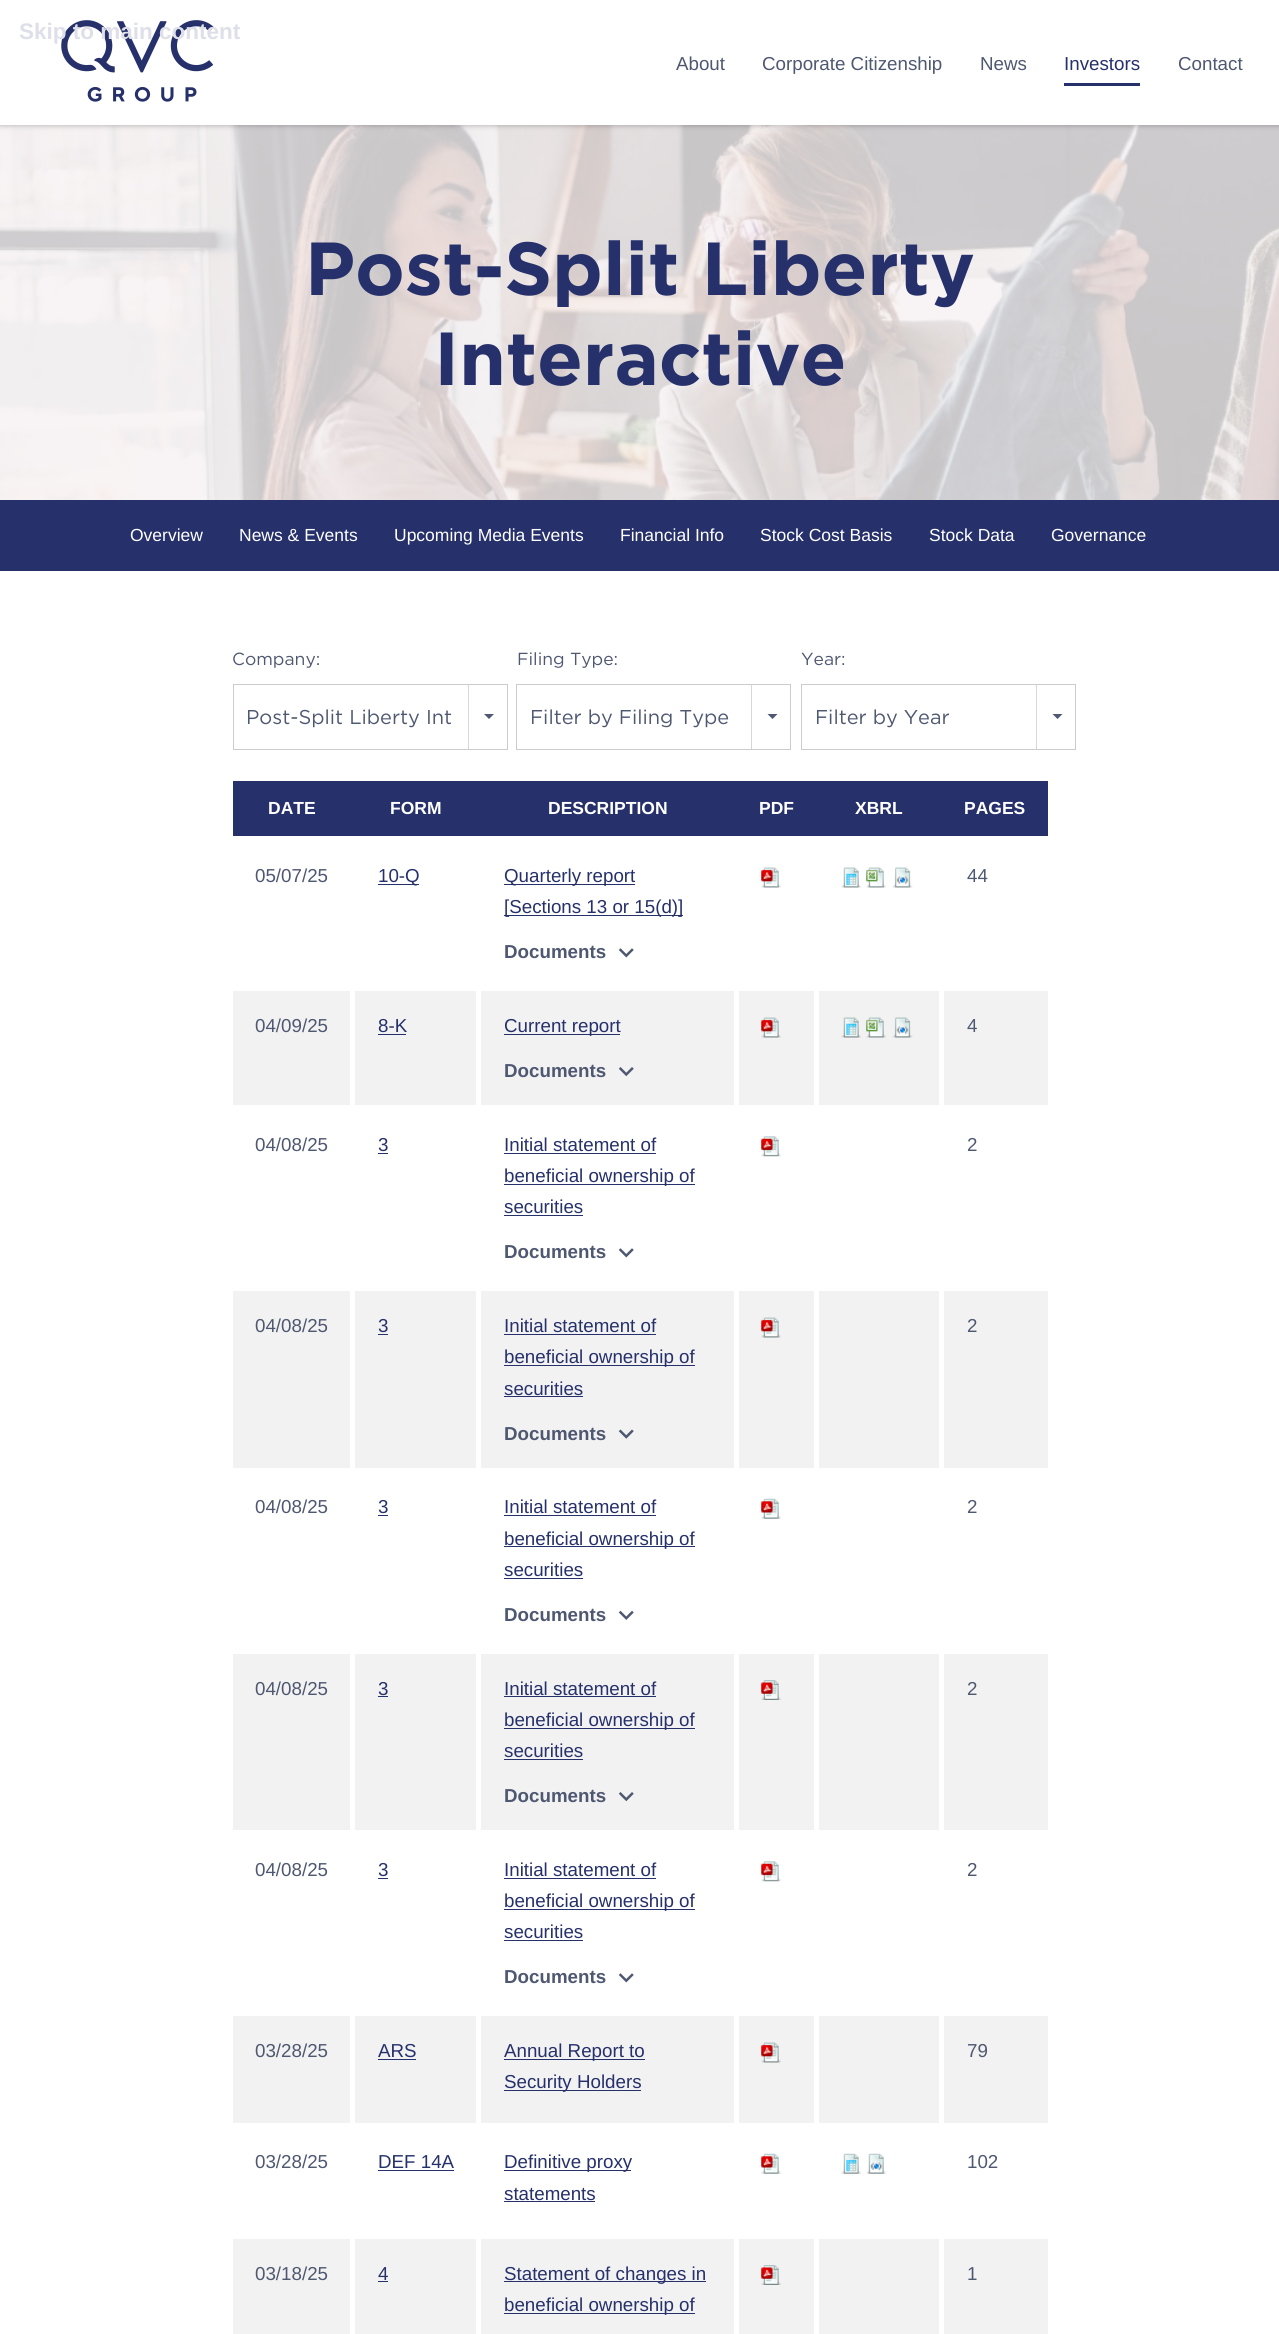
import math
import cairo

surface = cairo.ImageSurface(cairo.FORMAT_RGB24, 1279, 2334)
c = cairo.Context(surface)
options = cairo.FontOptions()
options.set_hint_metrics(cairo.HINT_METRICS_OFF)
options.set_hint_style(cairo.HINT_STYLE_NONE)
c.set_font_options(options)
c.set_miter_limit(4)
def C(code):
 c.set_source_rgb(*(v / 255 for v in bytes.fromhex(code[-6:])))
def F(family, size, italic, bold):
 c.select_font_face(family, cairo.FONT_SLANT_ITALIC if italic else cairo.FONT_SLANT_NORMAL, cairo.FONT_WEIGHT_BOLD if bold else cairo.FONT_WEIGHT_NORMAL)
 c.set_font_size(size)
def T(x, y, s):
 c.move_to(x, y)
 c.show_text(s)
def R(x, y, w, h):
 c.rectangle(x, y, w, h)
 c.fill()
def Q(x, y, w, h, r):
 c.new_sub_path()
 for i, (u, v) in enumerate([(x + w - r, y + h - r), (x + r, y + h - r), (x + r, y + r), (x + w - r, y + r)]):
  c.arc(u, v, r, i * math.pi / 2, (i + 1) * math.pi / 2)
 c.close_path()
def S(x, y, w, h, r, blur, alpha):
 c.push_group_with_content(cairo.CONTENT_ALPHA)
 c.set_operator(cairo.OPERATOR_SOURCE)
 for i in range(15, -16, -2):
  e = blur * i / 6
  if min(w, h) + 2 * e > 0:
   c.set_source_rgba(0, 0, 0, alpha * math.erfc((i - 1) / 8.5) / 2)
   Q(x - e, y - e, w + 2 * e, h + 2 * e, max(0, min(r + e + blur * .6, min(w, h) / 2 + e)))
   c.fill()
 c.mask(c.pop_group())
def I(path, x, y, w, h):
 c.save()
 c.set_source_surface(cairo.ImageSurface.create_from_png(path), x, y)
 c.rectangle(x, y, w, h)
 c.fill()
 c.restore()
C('ffffff')
c.paint()
I('2.png',0,125,1279,375)
C('000000')
S(0,0,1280,125,0,3,.3)
C('ffffff')
R(0,0,1279,125)
I('1.png',61,20,153,82)
F('Liberation Sans',22.5,0,1)
C('dedfe8')
T(19,39,'Skip to main content')
F('Liberation Sans',18.75,0,0)
C('4f5871')
T(676,70,'About')
T(762,70,'Corporate Citizenship')
T(980,70,'News')
C('26306b')
T(1064,70,'Investors')
R(1064,83,76,3)
C('4f5871')
T(1178,70,'Contact')
F('Gotham',75,0,1)
C('26306b')
T(305,295,'Post-Split Liberty')
T(434,385,'Interactive')
R(0,500,1279,71)
F('Liberation Sans',17.5,0,0)
C('ffffff')
T(130,541,'Overview')
T(239,541,'News & Events')
T(394,541,'Upcoming Media Events')
T(620,541,'Financial Info')
T(760,541,'Stock Cost Basis')
T(929,541,'Stock Data')
T(1051,541,'Governance')
F('Gotham',17.5,0,0)
C('4f5871')
T(232,665,'Company:')
c.rectangle(233.5,684.5,274,65)
C('cccccc')
c.set_line_width(1)
c.stroke()
F('Gotham',20,0,0)
C('4f5871')
T(246,724,'Post-Split Liberty Int')
C('d7d7d7')
R(468,685,1,64)
C('4f5871')
c.new_path()
c.move_to(484,714)
c.line_to(494,714)
c.line_to(489,719)
c.close_path()
c.fill()
F('Gotham',17.5,0,0)
T(517,665,'Filing Type:')
c.rectangle(516.5,684.5,274,65)
C('cccccc')
c.stroke()
F('Gotham',20,0,0)
C('4f5871')
T(530,724,'Filter by Filing Type')
C('d7d7d7')
R(751,685,1,64)
C('4f5871')
c.new_path()
c.move_to(767.5,714)
c.line_to(777.5,714)
c.line_to(772.5,719)
c.close_path()
c.fill()
F('Gotham',17.5,0,0)
T(801,665,'Year:')
c.rectangle(801.5,684.5,274,65)
C('cccccc')
c.stroke()
F('Gotham',20,0,0)
C('4f5871')
T(815,724,'Filter by Year')
C('d7d7d7')
R(1036,685,1,64)
C('4f5871')
c.new_path()
c.move_to(1052.5,714)
c.line_to(1062.5,714)
c.line_to(1057.5,719)
c.close_path()
c.fill()
C('26306b')
R(233,781,815,55)
F('Liberation Sans',17.5,0,1)
C('ffffff')
T(268,814,'DATE')
T(390,814,'FORM')
T(548,814,'DESCRIPTION')
T(759,814,'PDF')
T(855,814,'XBRL')
T(964,814,'PAGES')
F('Liberation Sans',18.75,0,0)
C('4f5871')
T(255,882,'05/07/25')
C('26306b')
R(378,884,41,1)
T(378,882,'10-Q')
R(504,884,131,1)
T(504,882,'Quarterly report')
R(504,915,179,1)
T(504,913,'[Sections 13 or 15(d)]')
F('Liberation Sans',18.75,0,1)
C('4f5871')
T(504,958,'Documents')
I('3.png',618,948,16,10)
I('4.png',761,867,20,21)
I('5.png',841,867,20,21)
I('6.png',866,867,20,21)
I('7.png',892,867,21,21)
F('Liberation Sans',18.75,0,0)
T(967,882,'44')
C('f2f2f2')
R(233,991,117,114)
C('4f5871')
T(255,1032,'04/09/25')
C('f2f2f2')
R(355,991,121,114)
C('26306b')
T(378,1032,'8-K')
R(378,1034,28,1)
C('f2f2f2')
R(481,991,253,114)
C('26306b')
R(504,1034,116,1)
T(504,1032,'Current report')
F('Liberation Sans',18.75,0,1)
C('4f5871')
T(504,1077,'Documents')
I('8.png',618,1067,16,10)
C('f2f2f2')
R(739,991,75,114)
I('9.png',761,1017,20,21)
R(819,991,120,114)
I('10.png',841,1017,20,21)
I('11.png',866,1017,20,21)
I('12.png',892,1017,21,21)
R(944,991,104,114)
F('Liberation Sans',18.75,0,0)
C('4f5871')
T(967,1032,'4')
T(255,1151,'04/08/25')
C('26306b')
T(378,1151,'3')
R(378,1153,10,1)
T(504,1151,'Initial statement of')
R(504,1153,152,1)
R(504,1184,191,1)
T(504,1182,'beneficial ownership of')
T(504,1213,'securities')
R(504,1215,79,1)
F('Liberation Sans',18.75,0,1)
C('4f5871')
T(504,1258,'Documents')
I('3.png',618,1248,16,10)
I('13.png',761,1136,20,21)
F('Liberation Sans',18.75,0,0)
T(967,1151,'2')
C('f2f2f2')
R(233,1291,117,177)
C('4f5871')
T(255,1332,'04/08/25')
C('f2f2f2')
R(355,1291,121,177)
C('26306b')
T(378,1332,'3')
R(378,1334,10,1)
C('f2f2f2')
R(481,1291,253,177)
C('26306b')
T(504,1332,'Initial statement of')
R(504,1334,152,1)
R(504,1365,191,1)
T(504,1363,'beneficial ownership of')
T(504,1395,'securities')
R(504,1396,79,1)
F('Liberation Sans',18.75,0,1)
C('4f5871')
T(504,1440,'Documents')
I('14.png',618,1429,16,10)
C('f2f2f2')
R(739,1291,75,177)
I('9.png',761,1317,20,21)
R(819,1291,120,177)
R(944,1291,104,177)
F('Liberation Sans',18.75,0,0)
C('4f5871')
T(967,1332,'2')
T(255,1513,'04/08/25')
C('26306b')
T(378,1513,'3')
R(378,1515,10,1)
T(504,1513,'Initial statement of')
R(504,1515,152,1)
R(504,1546,191,1)
T(504,1545,'beneficial ownership of')
T(504,1576,'securities')
R(504,1578,79,1)
F('Liberation Sans',18.75,0,1)
C('4f5871')
T(504,1621,'Documents')
I('15.png',618,1610,16,10)
I('16.png',761,1498,20,21)
F('Liberation Sans',18.75,0,0)
T(967,1513,'2')
C('f2f2f2')
R(233,1654,117,176)
C('4f5871')
T(255,1695,'04/08/25')
C('f2f2f2')
R(355,1654,121,176)
C('26306b')
T(378,1695,'3')
R(378,1696,10,1)
C('f2f2f2')
R(481,1654,253,176)
C('26306b')
T(504,1695,'Initial statement of')
R(504,1696,152,1)
R(504,1728,191,1)
T(504,1726,'beneficial ownership of')
T(504,1757,'securities')
R(504,1759,79,1)
F('Liberation Sans',18.75,0,1)
C('4f5871')
T(504,1802,'Documents')
I('8.png',618,1792,16,10)
C('f2f2f2')
R(739,1654,75,176)
I('17.png',761,1680,20,20)
R(819,1654,120,176)
R(944,1654,104,176)
F('Liberation Sans',18.75,0,0)
C('4f5871')
T(967,1695,'2')
T(255,1876,'04/08/25')
C('26306b')
T(378,1876,'3')
R(378,1878,10,1)
T(504,1876,'Initial statement of')
R(504,1878,152,1)
R(504,1909,191,1)
T(504,1907,'beneficial ownership of')
T(504,1938,'securities')
R(504,1940,79,1)
F('Liberation Sans',18.75,0,1)
C('4f5871')
T(504,1983,'Documents')
I('3.png',618,1973,16,10)
I('13.png',761,1861,20,21)
F('Liberation Sans',18.75,0,0)
T(967,1876,'2')
C('f2f2f2')
R(233,2016,117,107)
C('4f5871')
T(255,2057,'03/28/25')
C('f2f2f2')
R(355,2016,121,107)
C('26306b')
T(378,2057,'ARS')
R(378,2059,38,1)
C('f2f2f2')
R(481,2016,253,107)
C('26306b')
R(504,2059,141,1)
T(504,2057,'Annual Report to')
R(504,2090,137,1)
T(504,2088,'Security Holders')
C('f2f2f2')
R(739,2016,75,107)
I('18.png',761,2042,20,21)
R(819,2016,120,107)
R(944,2016,104,107)
C('4f5871')
T(967,2057,'79')
T(255,2168,'03/28/25')
C('26306b')
T(378,2168,'DEF 14A')
R(378,2170,76,1)
R(504,2170,127,1)
T(504,2168,'Definitive proxy')
T(504,2200,'statements')
R(504,2201,91,1)
I('16.png',761,2153,20,21)
I('19.png',841,2153,20,21)
I('20.png',866,2153,20,21)
C('4f5871')
T(967,2168,'102')
C('f2f2f2')
R(233,2239,117,95)
C('4f5871')
T(255,2280,'03/18/25')
C('f2f2f2')
R(355,2239,121,95)
C('26306b')
T(378,2280,'4')
R(378,2281,10,1)
C('f2f2f2')
R(481,2239,253,95)
C('26306b')
R(504,2281,202,1)
T(504,2280,'Statement of changes in')
R(504,2313,191,1)
T(504,2311,'beneficial ownership of')
C('f2f2f2')
R(739,2239,75,95)
I('17.png',761,2265,20,20)
R(819,2239,120,95)
R(944,2239,104,95)
C('4f5871')
T(967,2280,'1')
surface.write_to_png('o.png')
